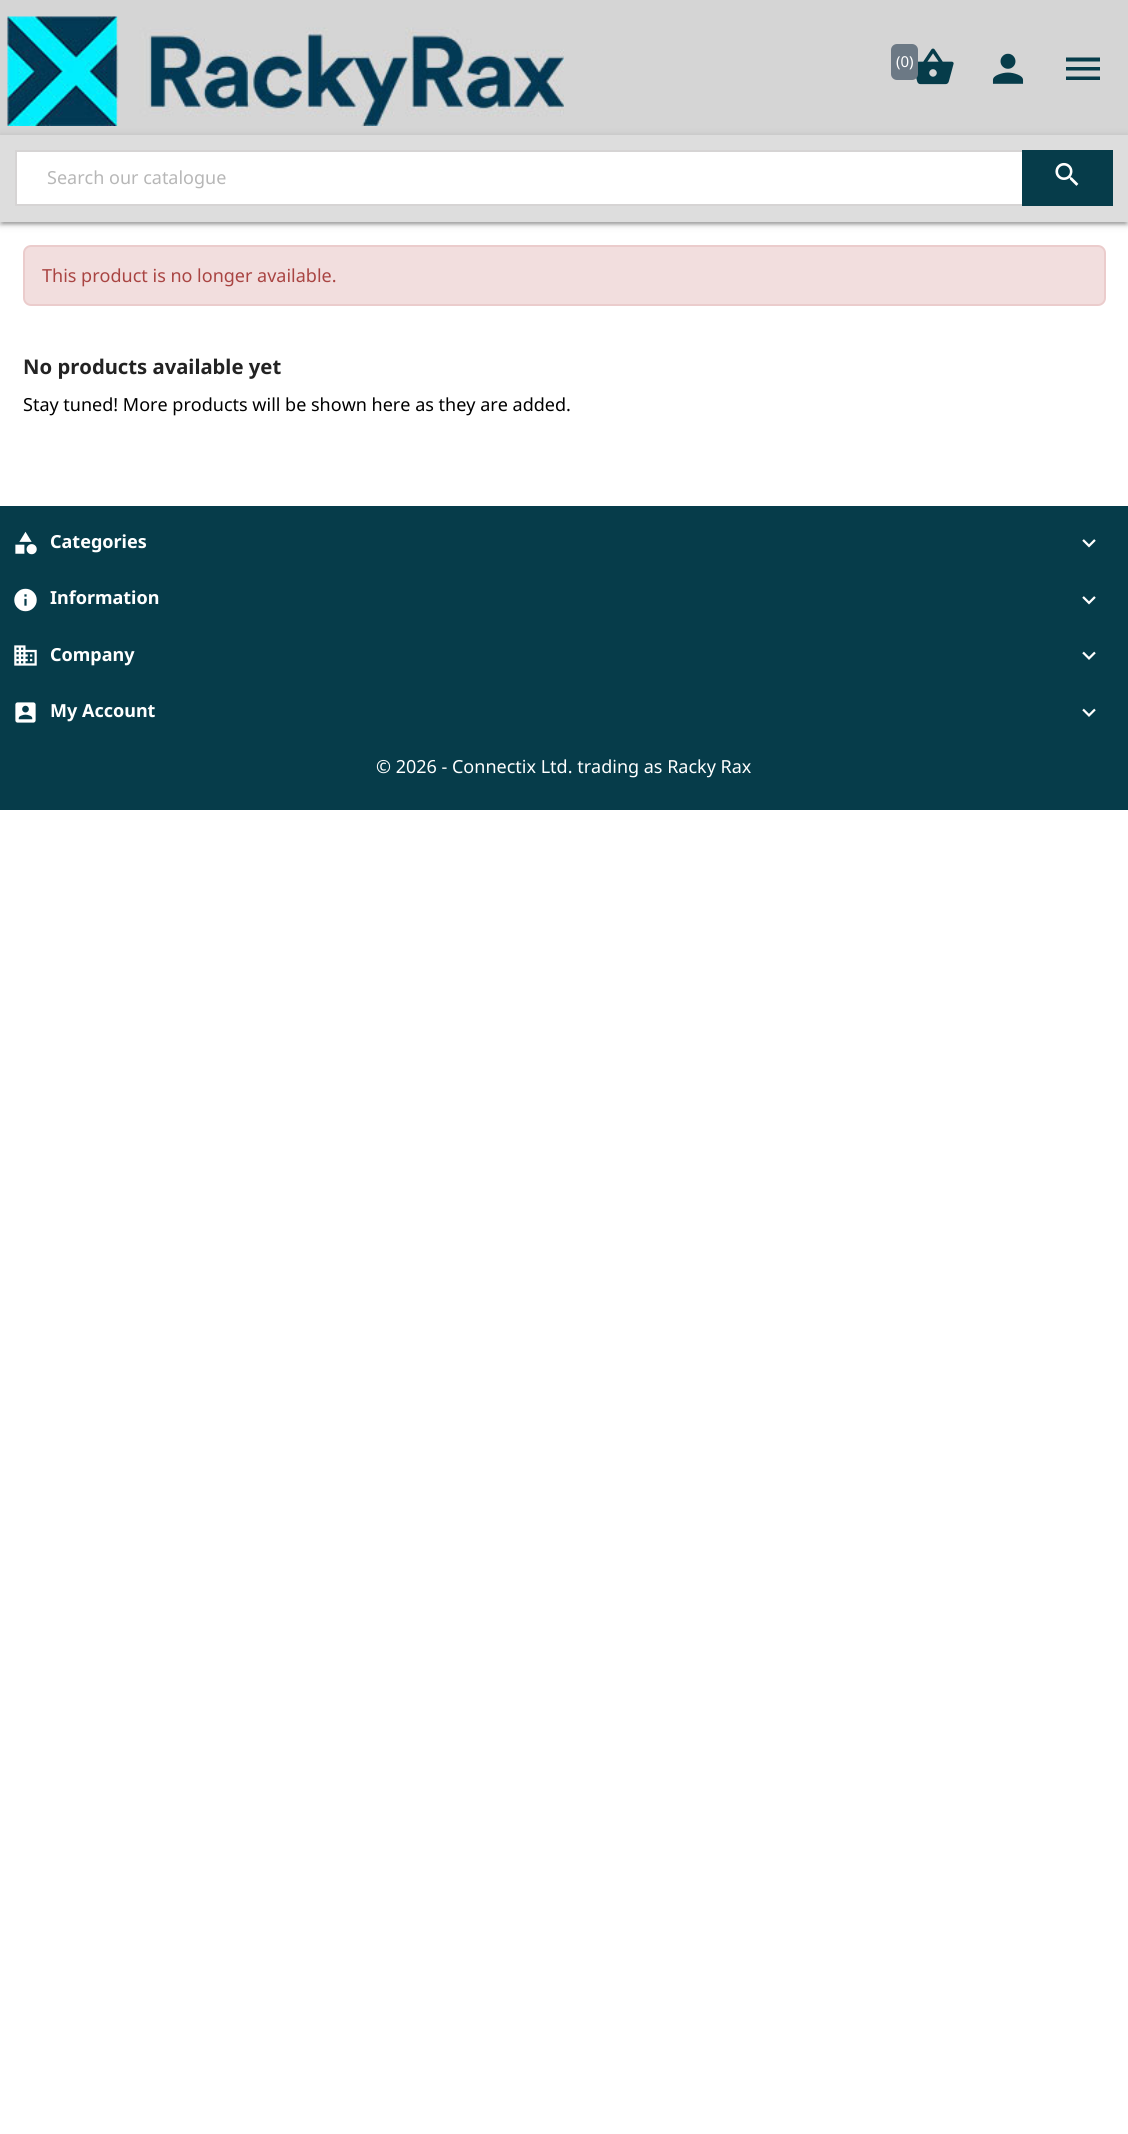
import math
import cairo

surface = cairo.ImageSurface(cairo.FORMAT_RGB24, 1128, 2134)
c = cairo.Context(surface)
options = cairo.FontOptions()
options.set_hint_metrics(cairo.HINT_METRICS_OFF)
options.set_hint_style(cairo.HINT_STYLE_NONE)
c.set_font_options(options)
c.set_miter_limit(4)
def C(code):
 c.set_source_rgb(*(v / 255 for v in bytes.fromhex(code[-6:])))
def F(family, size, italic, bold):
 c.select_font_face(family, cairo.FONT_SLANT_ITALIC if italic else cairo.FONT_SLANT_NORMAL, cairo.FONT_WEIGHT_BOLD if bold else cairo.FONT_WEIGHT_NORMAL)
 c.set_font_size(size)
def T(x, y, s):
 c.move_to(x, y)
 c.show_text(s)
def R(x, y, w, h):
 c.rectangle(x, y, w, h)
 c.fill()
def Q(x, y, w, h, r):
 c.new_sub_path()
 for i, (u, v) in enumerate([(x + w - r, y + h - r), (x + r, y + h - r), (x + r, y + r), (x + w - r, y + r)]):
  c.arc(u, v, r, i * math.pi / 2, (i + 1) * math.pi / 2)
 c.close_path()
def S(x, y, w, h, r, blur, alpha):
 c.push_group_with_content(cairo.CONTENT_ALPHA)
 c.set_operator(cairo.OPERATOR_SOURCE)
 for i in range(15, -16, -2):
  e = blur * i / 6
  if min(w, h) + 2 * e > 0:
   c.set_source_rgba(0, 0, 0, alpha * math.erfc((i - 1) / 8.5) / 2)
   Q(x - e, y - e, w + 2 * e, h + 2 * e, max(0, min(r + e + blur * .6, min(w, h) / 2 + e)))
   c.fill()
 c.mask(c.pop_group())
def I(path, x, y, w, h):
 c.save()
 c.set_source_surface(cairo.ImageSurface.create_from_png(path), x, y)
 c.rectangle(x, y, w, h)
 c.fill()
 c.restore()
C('ffffff')
c.paint()
C('d5d5d5')
R(0,0,1128,135)
C('000000')
S(0,137,1128,87,0,4,.2)
I('1.png',7,16,557,110)
I('2.png',916,48,38,37)
C('6c7985')
Q(891,44,27,36,6)
c.fill()
F('Noto Sans',15,0,0)
C('ffffff')
T(896,67,'(0)')
I('3.png',992,53,32,31)
C('063c4a')
c.new_path()
c.move_to(1066,57.5)
c.line_to(1100,57.5)
c.line_to(1100,61.5)
c.line_to(1066,61.5)
c.close_path()
c.move_to(1066,70.5)
c.line_to(1066,67)
c.line_to(1100,67)
c.line_to(1100,70.5)
c.close_path()
c.move_to(1066,80)
c.line_to(1066,76.5)
c.line_to(1100,76.5)
c.line_to(1100,80)
c.close_path()
c.fill()
C('000000')
S(3,143,1122,81,0,1,.12)
S(0,138,1128,87,0,1.5,.14)
C('dddddd')
R(0,135,1128,87)
C('ffffff')
R(17,152,1005,52)
c.rectangle(16,151,1096,54)
C('d6d4d4')
c.stroke()
F('Noto Sans',18,0,0)
C('b7b7b7')
T(47,184,'Search our catalogue')
C('063c4a')
R(1022,150,91,56)
I('4.png',1055,162,24,24)
C('f2dede')
Q(24,246,1081,59,7)
c.fill_preserve()
C('ebcccc')
c.stroke()
C('a94442')
T(42,282,'This product is no longer available.')
F('Noto Sans',20.25,0,1)
C('232323')
T(23,374,'No products available yet')
F('Noto Sans',18,0,0)
C('000000')
T(23,411,'Stay tuned! More products will be shown here as they are added.')
C('063c4a')
R(0,506,1128,304)
I('5.png',15,531,22,24)
F('Noto Sans',18,0,1)
C('ffffff')
T(50,548,'Categories')
I('6.png',1082,539,14,9)
I('7.png',14,588,23,24)
T(50,604,'Information')
I('6.png',1082,596,14,9)
I('8.png',14,645,23,21)
T(50,661,'Company')
I('9.png',1082,651,14,9)
I('10.png',15,702,21,21)
T(50,717,'My Account')
I('9.png',1082,708,14,9)
F('Noto Sans',18,0,0)
T(376,773,'© 2026 - Connectix Ltd. trading as Racky Rax')
surface.write_to_png('o.png')
